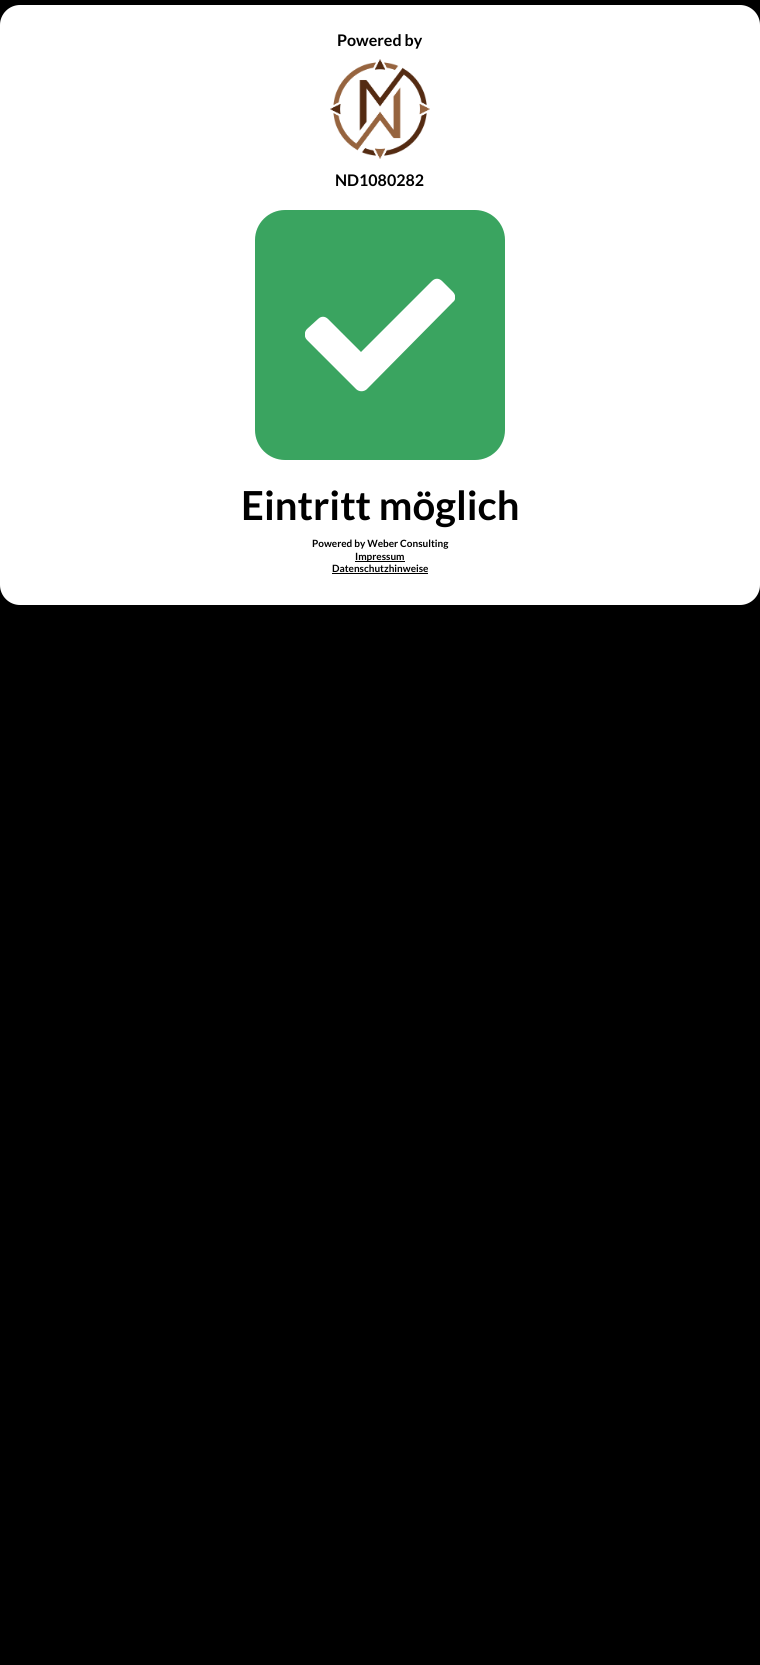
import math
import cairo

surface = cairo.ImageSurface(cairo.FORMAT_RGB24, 760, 1665)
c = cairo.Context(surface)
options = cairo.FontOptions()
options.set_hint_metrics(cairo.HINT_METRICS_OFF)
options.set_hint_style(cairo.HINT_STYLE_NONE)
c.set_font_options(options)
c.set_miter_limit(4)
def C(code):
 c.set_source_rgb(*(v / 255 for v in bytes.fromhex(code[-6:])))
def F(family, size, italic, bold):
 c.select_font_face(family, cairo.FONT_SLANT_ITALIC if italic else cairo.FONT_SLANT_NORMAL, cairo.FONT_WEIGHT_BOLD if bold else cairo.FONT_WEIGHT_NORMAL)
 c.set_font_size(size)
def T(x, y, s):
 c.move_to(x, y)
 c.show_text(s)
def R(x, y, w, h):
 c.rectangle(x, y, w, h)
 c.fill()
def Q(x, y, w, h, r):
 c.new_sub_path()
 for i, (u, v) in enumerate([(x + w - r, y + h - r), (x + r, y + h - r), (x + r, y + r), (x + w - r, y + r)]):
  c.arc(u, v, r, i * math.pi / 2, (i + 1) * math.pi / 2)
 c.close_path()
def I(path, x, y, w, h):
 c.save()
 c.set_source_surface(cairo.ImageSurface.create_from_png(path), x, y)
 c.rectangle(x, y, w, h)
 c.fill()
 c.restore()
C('000000')
c.paint()
C('ffffff')
c.new_path()
c.move_to(20,5)
c.line_to(740,5)
c.curve_to(751,5,760,14,760,25)
c.line_to(760,530)
c.line_to(0,530)
c.line_to(0,25)
c.curve_to(0,14,9,5,20,5)
c.close_path()
c.fill()
F('Lato',16,0,1)
C('000000')
T(337,46,'Powered by')
I('1.png',330,59,100,100)
T(335,186,'ND1080282')
C('3aa460')
Q(255,210,250,250,30)
c.fill()
c.save()
c.rectangle(305,260,150,150)
c.clip()
C('ffffff')
c.new_path()
c.move_to(356,389)
c.line_to(307,340)
c.curve_to(304,337,304,332,307,329)
c.line_to(318,319)
c.curve_to(321,316,325,316,328,319)
c.line_to(361,352)
c.line_to(432,281)
c.curve_to(435,278,439,278,442,281)
c.line_to(453,292)
c.curve_to(456,295,456,300,453,302)
c.line_to(367,389)
c.curve_to(364,392,359,392,356,389)
c.close_path()
c.fill()
c.restore()
F('Lato',40,0,1)
C('000000')
T(241,520,'Eintritt möglich')
C('ffffff')
c.new_path()
c.move_to(0,530)
c.line_to(760,530)
c.line_to(760,585)
c.curve_to(760,596,751,605,740,605)
c.line_to(20,605)
c.curve_to(9,605,0,596,0,585)
c.close_path()
c.fill()
F('Lato',10,0,1)
C('000000')
T(312,547,'Powered by Weber Consulting')
R(355,561,50,1)
T(355,560,'Impressum')
T(332,572,'Datenschutzhinweise')
R(332,573,96,1)
surface.write_to_png('o.png')
